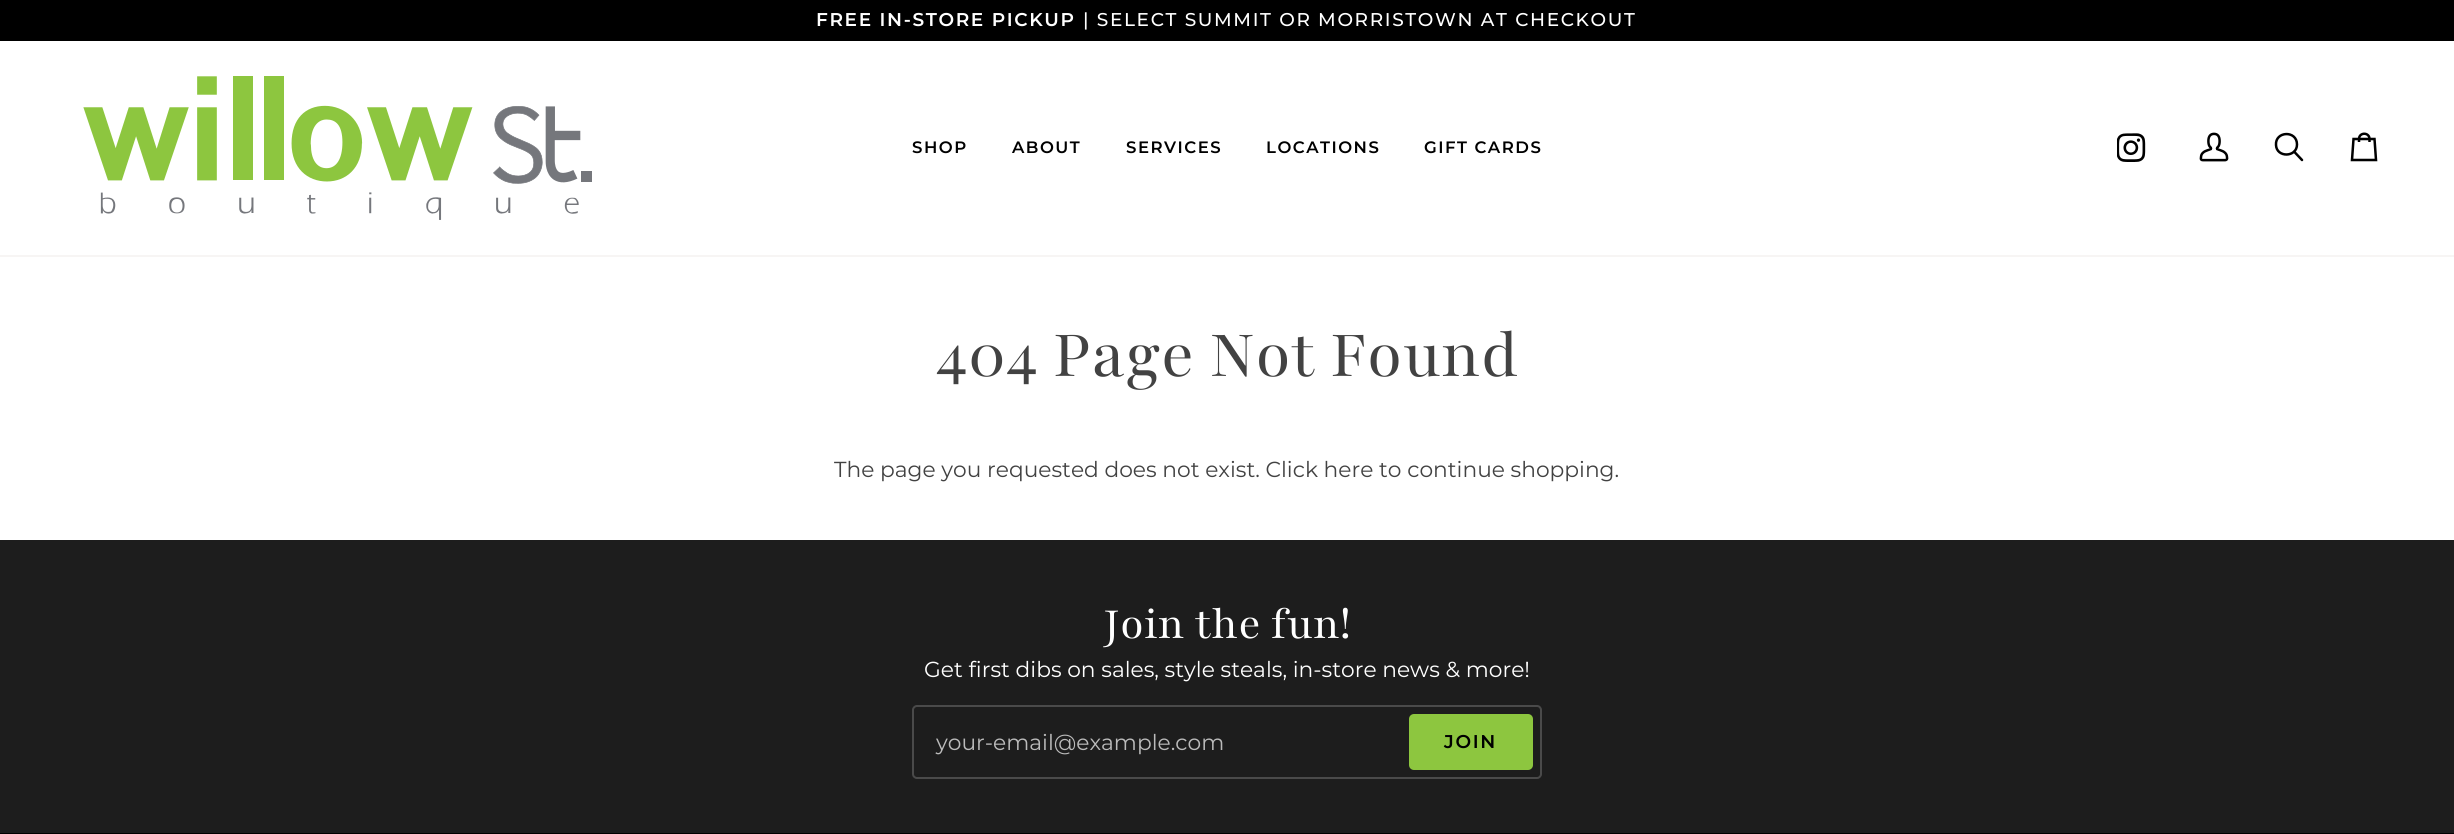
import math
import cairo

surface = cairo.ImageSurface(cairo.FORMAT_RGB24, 2454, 834)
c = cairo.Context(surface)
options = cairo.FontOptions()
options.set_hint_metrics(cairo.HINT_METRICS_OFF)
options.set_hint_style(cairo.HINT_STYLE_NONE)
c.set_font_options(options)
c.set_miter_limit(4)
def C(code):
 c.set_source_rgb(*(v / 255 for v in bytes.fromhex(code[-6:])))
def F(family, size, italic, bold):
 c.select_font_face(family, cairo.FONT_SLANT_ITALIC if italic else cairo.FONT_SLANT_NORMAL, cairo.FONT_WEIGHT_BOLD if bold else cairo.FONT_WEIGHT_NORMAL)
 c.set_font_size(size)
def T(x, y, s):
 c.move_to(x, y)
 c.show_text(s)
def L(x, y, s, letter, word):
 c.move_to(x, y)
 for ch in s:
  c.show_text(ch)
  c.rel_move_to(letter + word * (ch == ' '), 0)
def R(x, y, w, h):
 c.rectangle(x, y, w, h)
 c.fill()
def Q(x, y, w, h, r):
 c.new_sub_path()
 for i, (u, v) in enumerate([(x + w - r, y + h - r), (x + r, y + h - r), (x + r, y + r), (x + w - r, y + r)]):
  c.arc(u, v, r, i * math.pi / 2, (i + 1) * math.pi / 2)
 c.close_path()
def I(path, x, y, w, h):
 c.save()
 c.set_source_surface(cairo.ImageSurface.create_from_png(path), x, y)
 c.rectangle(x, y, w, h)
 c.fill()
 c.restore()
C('ffffff')
c.paint()
C('000000')
R(0,0,2454,41)
F('Montserrat SemiBold',18.5,0,0)
C('ffffff')
L(816,26,'FREE IN-STORE PICKUP',1.65,0)
F('Montserrat Medium',18.5,0,0)
L(1083,26,'| SELECT SUMMIT OR MORRISTOWN AT CHECKOUT',1.65,0)
C('f7f5f4')
R(0,255,2454,2)
I('1.png',83,76,509,144)
F('Montserrat SemiBold',16.5,0,0)
C('000000')
L(912,153,'SHOP',1.5,0)
L(1012,153,'ABOUT',1.5,0)
L(1126,153,'SERVICES',1.5,0)
L(1266,153,'LOCATIONS',1.5,0)
L(1424,153,'GIFT CARDS',1.5,0)
I('2.png',2117,133,29,29)
I('3.png',2199,132,30,30)
c.new_path()
c.move_to(2297,144.5)
c.curve_to(2297,157.5,2276.5,158,2276,145)
c.curve_to(2275,131,2297,130,2297,144.5)
c.close_path()
c.move_to(2302,160)
c.line_to(2294,151.5)
c.close_path()
c.set_line_width(2.5)
c.set_line_cap(cairo.LINE_CAP_ROUND)
c.set_line_join(cairo.LINE_JOIN_ROUND)
c.stroke()
c.new_path()
c.move_to(2369.5,142)
c.line_to(2369.5,139)
c.line_to(2374.5,139)
c.line_to(2376,160)
c.line_to(2352,160)
c.line_to(2353.5,139)
c.line_to(2359,139)
c.curve_to(2359,132,2369.5,132,2369.5,139)
c.line_to(2359,139)
c.line_to(2359,142)
c.set_line_cap(cairo.LINE_CAP_BUTT)
c.set_line_join(cairo.LINE_JOIN_MITER)
c.stroke()
F('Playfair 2',72,0,0)
C('424242')
T(936,376,'404 Page Not Found')
F('Montserrat',21.75,0,0)
T(834,477,'The page you requested does not exist. Click here to continue shopping.')
C('1d1d1d')
R(0,540,2454,293)
F('Playfair',48,0,0)
C('ffffff')
T(1104,638,'Join the fun!')
F('Montserrat',21.75,0,0)
T(924,677,'Get first dibs on sales, style steals, in-store news & more!')
Q(913,706,628,72,4)
C('4a4a4a')
c.set_line_width(2)
c.stroke()
C('bbbbbb')
T(936,750,'your-email@example.com')
C('8dc63f')
Q(1409,714,124,56,5)
c.fill()
F('Montserrat SemiBold',18.5,0,0)
C('000000')
L(1444,748,'JOIN',1.65,0)
R(0,833,2454,1)
surface.write_to_png('o.png')
